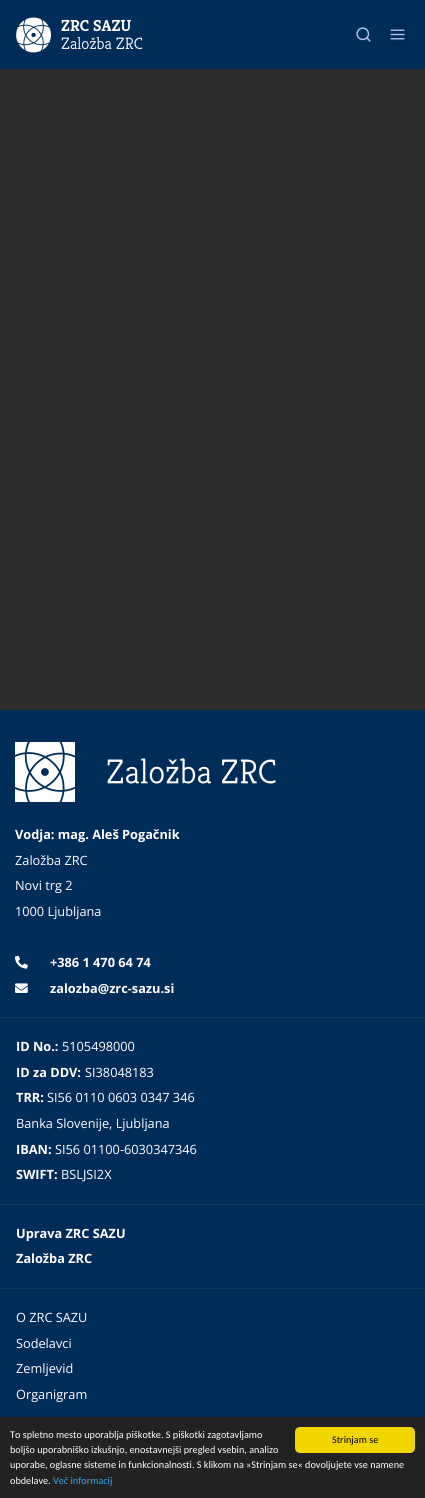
import math
import cairo

surface = cairo.ImageSurface(cairo.FORMAT_RGB24, 425, 1498)
c = cairo.Context(surface)
options = cairo.FontOptions()
options.set_hint_metrics(cairo.HINT_METRICS_OFF)
options.set_hint_style(cairo.HINT_STYLE_NONE)
c.set_font_options(options)
c.set_miter_limit(4)
def C(code):
 c.set_source_rgb(*(v / 255 for v in bytes.fromhex(code[-6:])))
def F(family, size, italic, bold):
 c.select_font_face(family, cairo.FONT_SLANT_ITALIC if italic else cairo.FONT_SLANT_NORMAL, cairo.FONT_WEIGHT_BOLD if bold else cairo.FONT_WEIGHT_NORMAL)
 c.set_font_size(size)
def T(x, y, s):
 c.move_to(x, y)
 c.show_text(s)
def R(x, y, w, h):
 c.rectangle(x, y, w, h)
 c.fill()
def Q(x, y, w, h, r):
 c.new_sub_path()
 for i, (u, v) in enumerate([(x + w - r, y + h - r), (x + r, y + h - r), (x + r, y + r), (x + w - r, y + r)]):
  c.arc(u, v, r, i * math.pi / 2, (i + 1) * math.pi / 2)
 c.close_path()
def I(path, x, y, w, h):
 c.save()
 c.set_source_surface(cairo.ImageSurface.create_from_png(path), x, y)
 c.rectangle(x, y, w, h)
 c.fill()
 c.restore()
C('002c5a')
c.paint()
I('1.png',16,17,35,36)
F('Kreon',16,0,1)
C('ffffff')
T(61,31,'ZRC SAZU')
F('Kreon Light',16.5,0,0)
T(61,49,'Založba ZRC')
I('2.png',356,27,15,15)
Q(388.5,25.5,18,18,5.5)
C('00254d')
c.set_line_width(1)
c.stroke()
I('3.png',390,29,15,11)
I('4.png',390,29,15,11)
C('2c2c2c')
R(0,69,425,641)
I('5.png',15,742,261,60)
F('Open Sans',12.75,0,1)
C('ffffff')
T(15,839,'Vodja: mag. Aleš Pogačnik')
F('Open Sans',12.75,0,0)
T(15,865,'Založba ZRC')
T(15,890,'Novi trg 2')
T(15,916,'1000 Ljubljana')
I('6.png',15,955,13,14)
F('Open Sans',12.75,0,1)
T(50,967,'+386 1 470 64 74')
I('7.png',15,983,13,10)
T(50,993,'zalozba@zrc-sazu.si')
C('0e3866')
R(0,1017,425,1)
C('ffffff')
T(16,1051,'ID No.:')
F('Open Sans',12.75,0,0)
T(62,1051,'5105498000')
F('Open Sans',12.75,0,1)
T(16,1077,'ID za DDV:')
F('Open Sans',12.75,0,0)
T(85,1077,'SI38048183')
F('Open Sans',12.75,0,1)
T(16,1102,'TRR:')
F('Open Sans',12.75,0,0)
T(47,1102,'SI56 0110 0603 0347 346')
T(16,1128,'Banka Slovenije, Ljubljana')
F('Open Sans',12.75,0,1)
T(16,1154,'IBAN:')
F('Open Sans',12.75,0,0)
T(55,1154,'SI56 01100-6030347346')
F('Open Sans',12.75,0,1)
T(16,1179,'SWIFT:')
F('Open Sans',12.75,0,0)
T(61,1179,'BSLJSI2X')
C('0e3866')
R(0,1204,425,1)
F('Open Sans',12.75,0,1)
C('ffffff')
T(16,1238,'Uprava ZRC SAZU')
T(16,1263,'Založba ZRC')
C('0e3866')
R(0,1288,425,1)
F('Open Sans',12.75,0,0)
C('ffffff')
T(16,1322,'O ZRC SAZU')
T(16,1348,'Sodelavci')
T(16,1373,'Zemljevid')
T(16,1399,'Organigram')
C('222222')
R(0,1417,425,81)
F('Carlito',10.2,0,0)
C('ffffff')
T(10,1438,'To spletno mesto uporablja piškotke. S piškotki zagotavljamo')
T(10,1453,'boljšo uporabniško izkušnjo, enostavnejši pregled vsebin, analizo')
T(10,1468,'uporabe, oglasne sisteme in funkcionalnosti. S klikom na »Strinjam se« dovoljujete vse namene')
T(10,1484,'obdelave.')
C('31a8f0')
T(53,1484,'Več informacij')
C('f1d600')
Q(295,1427,120,26,5)
c.fill()
C('000000')
T(332,1443,'Strinjam se')
surface.write_to_png('o.png')
